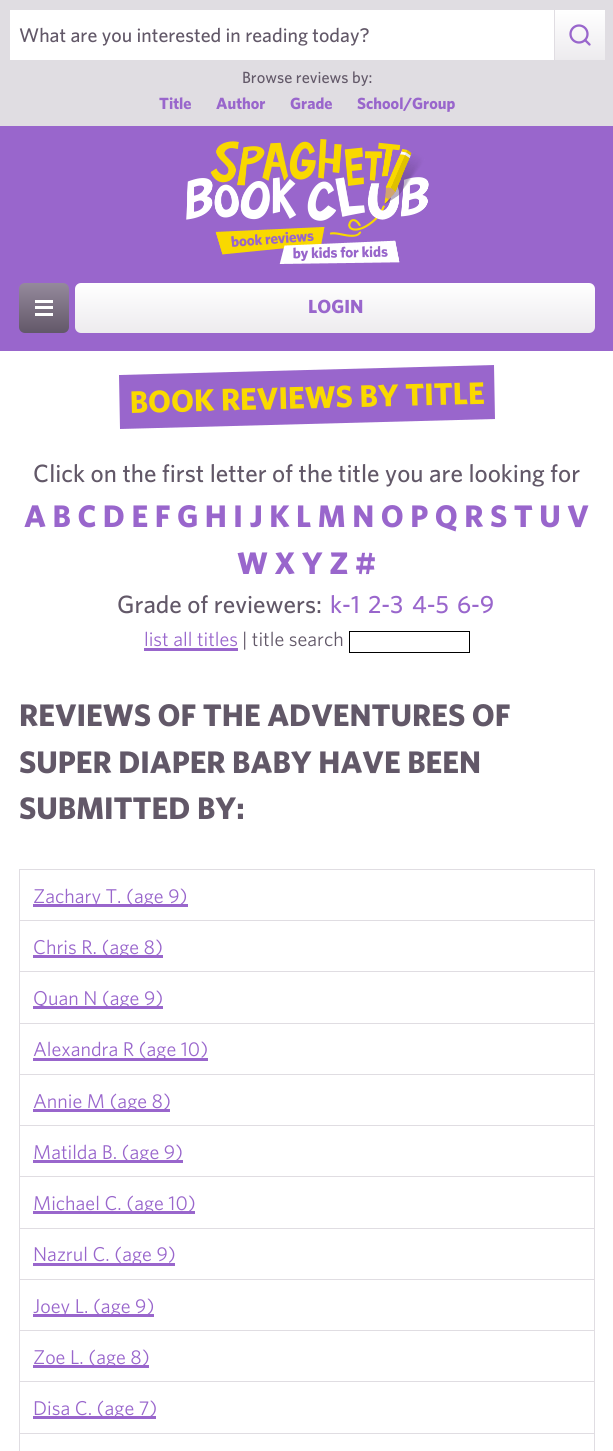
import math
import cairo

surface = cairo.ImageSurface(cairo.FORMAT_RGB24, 613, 1451)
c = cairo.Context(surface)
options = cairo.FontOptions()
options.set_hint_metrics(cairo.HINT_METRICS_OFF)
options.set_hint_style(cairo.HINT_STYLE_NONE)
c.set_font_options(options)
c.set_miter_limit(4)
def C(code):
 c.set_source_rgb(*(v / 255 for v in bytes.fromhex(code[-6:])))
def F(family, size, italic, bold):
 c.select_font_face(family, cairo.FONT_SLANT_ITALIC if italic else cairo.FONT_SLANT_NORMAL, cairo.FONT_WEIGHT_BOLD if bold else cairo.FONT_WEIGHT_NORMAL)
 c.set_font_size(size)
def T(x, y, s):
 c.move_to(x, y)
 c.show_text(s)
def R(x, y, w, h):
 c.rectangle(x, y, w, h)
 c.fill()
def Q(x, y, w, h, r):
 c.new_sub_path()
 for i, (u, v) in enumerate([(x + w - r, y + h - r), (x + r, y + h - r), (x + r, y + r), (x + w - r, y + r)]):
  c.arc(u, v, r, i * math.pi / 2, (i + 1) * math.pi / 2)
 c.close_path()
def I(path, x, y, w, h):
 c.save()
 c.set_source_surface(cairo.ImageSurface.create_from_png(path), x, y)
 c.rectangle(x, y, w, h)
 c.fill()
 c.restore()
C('9966cc')
c.paint()
C('e0dde2')
R(0,0,613,126)
C('ffffff')
R(10,10,544,50)
F('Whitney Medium',19.8,0,0)
C('625868')
T(19,42,'What are you interested in reading today?')
gradient = cairo.LinearGradient(556,60,556,-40)
gradient.add_color_stop_rgba(0,0.929,0.922,0.933,1)
gradient.add_color_stop_rgba(.5,1,1,1,1)
c.set_source(gradient)
R(555,10,50,50)
c.new_path()
c.arc(579,34,8.5,0,2 * math.pi)
C('9966cc')
c.set_line_width(2.3)
c.stroke()
c.new_path()
c.move_to(589.5,44.5)
c.line_to(585,40)
c.set_line_cap(cairo.LINE_CAP_ROUND)
c.set_line_join(cairo.LINE_JOIN_ROUND)
c.stroke()
F('Whitney Medium',16.25,0,0)
C('625868')
T(242,83,'Browse reviews by:')
F('Whitney',16.25,0,1)
C('9966cc')
T(159,109,'Title')
T(216,109,'Author')
T(290,109,'Grade')
T(357,109,'School/Group')
I('1.png',186,139,243,125)
gradient = cairo.LinearGradient(19,333,19,233)
gradient.add_color_stop_rgba(0,0.384,0.345,0.408,1)
gradient.add_color_stop_rgba(.5,0.584,0.541,0.612,1)
c.set_source(gradient)
Q(19,283,50,50,6)
c.fill()
C('ffffff')
R(35,300,18,3)
R(35,306,18,3)
R(35,313,18,3)
gradient = cairo.LinearGradient(76,333,76,233)
gradient.add_color_stop_rgba(0,0.929,0.922,0.933,1)
gradient.add_color_stop_rgba(.5,1,1,1,1)
c.set_source(gradient)
Q(75,283,520,50,6)
c.fill()
F('Whitney',19,0,1)
C('9966cc')
T(308,313,'LOGIN')
C('ffffff')
R(0,351,613,1100)
C('9966cc')
c.new_path()
c.move_to(119,375)
c.line_to(494,365)
c.line_to(495,419)
c.line_to(120,429)
c.close_path()
c.fill()
F('Whitney',31.25,0,1)
C('fad900')
c.save()
c.translate(130,413)
c.rotate(-1.5 * math.pi / 180)
T(0,0,'BOOK REVIEWS BY TITLE')
c.restore()
F('Whitney Medium',25,0,0)
C('625868')
T(33,482,'Click on the first letter of the title you are looking for')
F('Whitney',31.25,0,1)
C('9966cc')
T(24,527,'A B C D E F G H I J K L M N O P Q R S T U V')
T(237,574,'W X Y Z #')
F('Whitney Medium',25,0,0)
C('625868')
T(117,613,'Grade of reviewers:')
C('9966cc')
T(330,613,'k-1')
T(368,613,'2-3')
T(412,613,'4-5')
T(457,613,'6-9')
F('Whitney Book',20,0,0)
T(144,646,'list all titles')
R(144,648,94,3)
C('625868')
T(242,646,'| title search')
c.rectangle(349.5,631.5,120,21)
C('000000')
c.set_line_width(1)
c.set_line_cap(cairo.LINE_CAP_BUTT)
c.set_line_join(cairo.LINE_JOIN_MITER)
c.stroke()
F('Whitney',31.25,0,1)
C('625868')
T(19,726,'REVIEWS OF THE ADVENTURES OF')
T(19,773,'SUPER DIAPER BABY HAVE BEEN')
T(19,819,'SUBMITTED BY:')
c.rectangle(19.5,869.5,575,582)
C('e0dde2')
c.stroke()
C('9966cc')
R(33,904,155,3)
F('Whitney Book',20,0,0)
T(33,903,'Zachary T. (age 9)')
C('e0dde2')
R(20,920,574,1)
C('9966cc')
R(33,955,130,3)
T(33,954,'Chris R. (age 8)')
C('e0dde2')
R(20,971,574,1)
C('9966cc')
R(33,1006,130,3)
T(33,1005,'Quan N (age 9)')
C('e0dde2')
R(20,1023,574,1)
C('9966cc')
R(33,1058,175,3)
T(33,1056,'Alexandra R (age 10)')
C('e0dde2')
R(20,1074,574,1)
C('9966cc')
R(33,1109,137,3)
T(33,1108,'Annie M (age 8)')
C('e0dde2')
R(20,1125,574,1)
C('9966cc')
R(33,1160,150,3)
T(33,1159,'Matilda B. (age 9)')
C('e0dde2')
R(20,1176,574,1)
C('9966cc')
R(33,1211,162,3)
T(33,1210,'Michael C. (age 10)')
C('e0dde2')
R(20,1228,574,1)
C('9966cc')
R(33,1263,142,3)
T(33,1261,'Nazrul C. (age 9)')
C('e0dde2')
R(20,1279,574,1)
C('9966cc')
R(33,1314,121,3)
T(33,1313,'Joey L. (age 9)')
C('e0dde2')
R(20,1330,574,1)
C('9966cc')
R(33,1365,116,3)
T(33,1364,'Zoe L. (age 8)')
C('e0dde2')
R(20,1381,574,1)
C('9966cc')
R(33,1416,123,3)
T(33,1415,'Disa C. (age 7)')
C('e0dde2')
R(20,1433,574,1)
surface.write_to_png('o.png')
